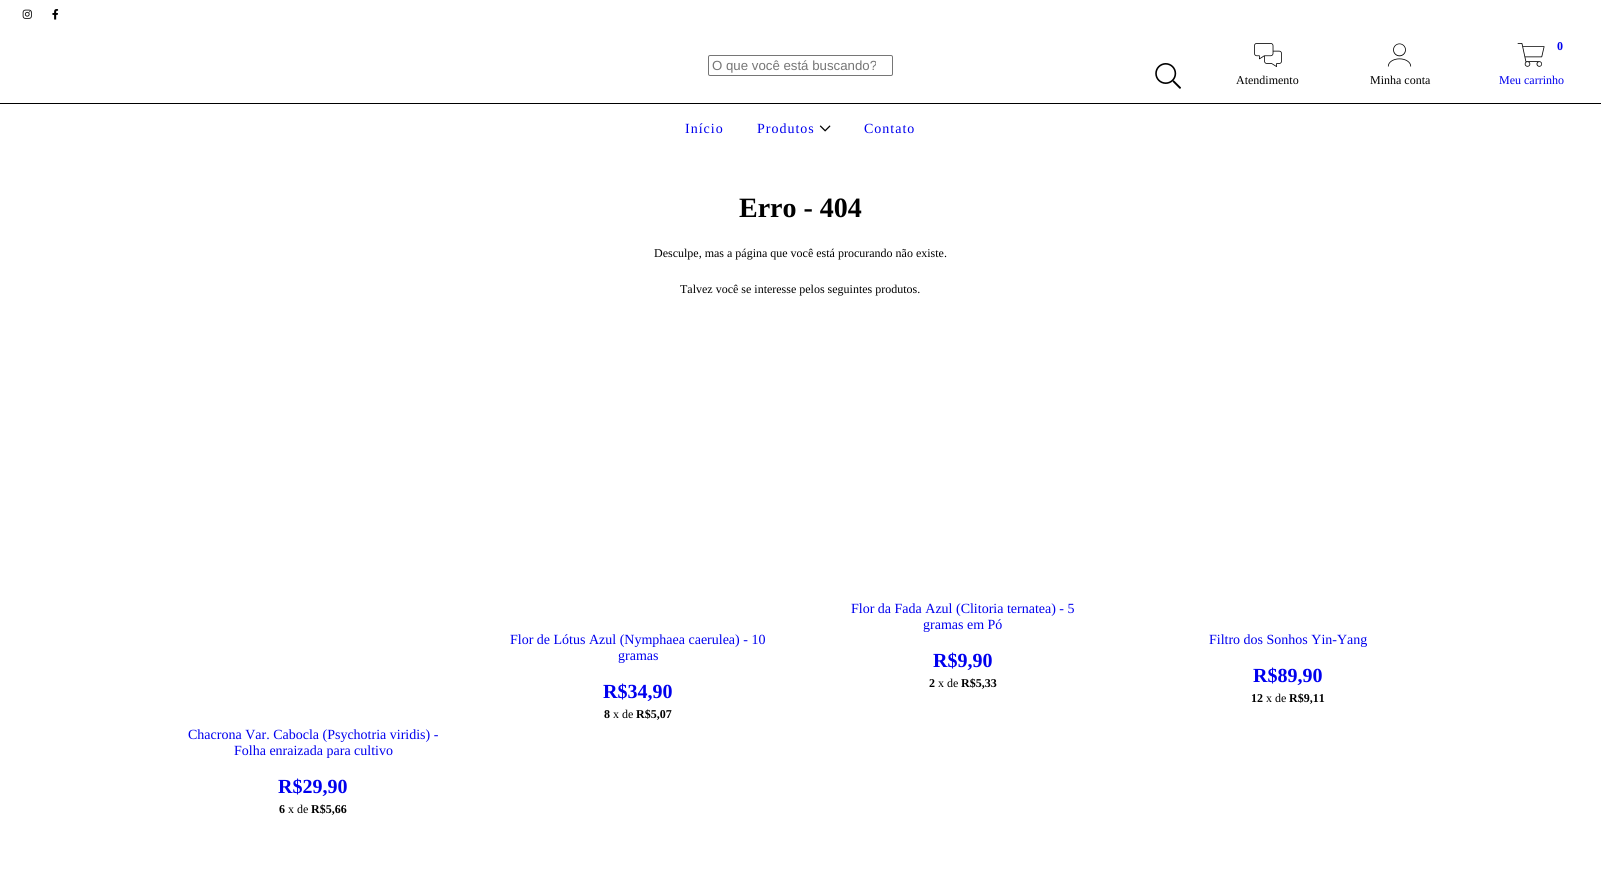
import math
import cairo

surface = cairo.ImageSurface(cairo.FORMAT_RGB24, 1601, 878)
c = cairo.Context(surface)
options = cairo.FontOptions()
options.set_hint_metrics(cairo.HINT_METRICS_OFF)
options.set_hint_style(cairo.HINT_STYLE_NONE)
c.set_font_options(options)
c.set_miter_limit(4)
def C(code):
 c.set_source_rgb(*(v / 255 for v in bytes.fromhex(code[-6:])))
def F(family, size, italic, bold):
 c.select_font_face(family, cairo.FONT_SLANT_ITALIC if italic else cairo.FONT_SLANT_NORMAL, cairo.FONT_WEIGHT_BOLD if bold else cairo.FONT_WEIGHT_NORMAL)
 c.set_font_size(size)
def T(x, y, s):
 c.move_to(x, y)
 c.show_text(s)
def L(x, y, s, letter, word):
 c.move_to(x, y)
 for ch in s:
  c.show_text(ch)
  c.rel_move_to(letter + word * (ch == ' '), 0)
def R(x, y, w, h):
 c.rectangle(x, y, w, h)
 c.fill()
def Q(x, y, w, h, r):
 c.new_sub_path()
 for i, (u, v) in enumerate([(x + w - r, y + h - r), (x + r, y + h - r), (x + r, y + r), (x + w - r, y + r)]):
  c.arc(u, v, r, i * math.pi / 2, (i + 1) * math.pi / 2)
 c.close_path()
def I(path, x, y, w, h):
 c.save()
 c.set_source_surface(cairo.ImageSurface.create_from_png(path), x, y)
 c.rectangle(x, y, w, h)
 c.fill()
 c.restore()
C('ffffff')
c.paint()
I('1.png',22,9,10,10)
I('2.png',52,9,7,11)
Q(708.5,55.5,184,20,1.5)
C('767676')
c.set_line_width(1)
c.stroke()
c.save()
c.rectangle(712,58,164,15)
c.clip()
F('Liberation Sans',13.25,0,0)
C('757575')
T(712,70,'O que você está buscando?')
c.restore()
I('3.png',1155,63,26,26)
I('4.png',1254,43,28,24)
F('Liberation Serif',12,0,0)
C('000000')
T(1236,84,'Atendimento')
I('5.png',1387,43,25,24)
T(1370,84,'Minha conta')
I('6.png',1517,43,28,24)
F('Liberation Serif',12,0,1)
C('0000ee')
T(1557,50,'0')
F('Liberation Serif',12,0,0)
T(1499,84,'Meu carrinho')
C('000000')
R(0,103,1601,1)
F('Liberation Serif',14,0,0)
C('0000ee')
L(685,133,'Início',1,0)
L(757,133,'Produtos',1,0)
I('7.png',819,125,12,7)
L(864,133,'Contato',1,0)
F('Liberation Serif',28,0,1)
C('000000')
T(739,217,'Erro - 404')
F('Liberation Serif',12,0,0)
T(654,257,'Desculpe, mas a página que você está procurando não existe.')
T(680,293,'Talvez você se interesse pelos seguintes produtos.')
F('Liberation Serif',14,0,0)
C('0000ee')
T(510,644,'Flor de Lótus Azul (Nymphaea caerulea) - 10')
T(618,660,'gramas')
F('Liberation Serif',20,0,1)
T(603,698,'R$34,90')
F('Liberation Serif',12,0,1)
C('000000')
T(604,718,'8')
F('Liberation Serif',12,0,0)
T(613,718,'x de')
F('Liberation Serif',12,0,1)
T(636,718,'R$5,07')
F('Liberation Serif',14,0,0)
C('0000ee')
T(851,613,'Flor da Fada Azul (Clitoria ternatea) - 5')
T(923,629,'gramas em Pó')
F('Liberation Serif',20,0,1)
T(933,667,'R$9,90')
F('Liberation Serif',12,0,1)
C('000000')
T(929,687,'2')
F('Liberation Serif',12,0,0)
T(938,687,'x de')
F('Liberation Serif',12,0,1)
T(961,687,'R$5,33')
F('Liberation Serif',14,0,0)
C('0000ee')
T(1209,644,'Filtro dos Sonhos Yin-Yang')
F('Liberation Serif',20,0,1)
T(1253,682,'R$89,90')
F('Liberation Serif',12,0,1)
C('000000')
T(1251,702,'12')
F('Liberation Serif',12,0,0)
T(1266,702,'x de')
F('Liberation Serif',12,0,1)
T(1289,702,'R$9,11')
F('Liberation Serif',14,0,0)
C('0000ee')
T(188,739,'Chacrona Var. Cabocla (Psychotria viridis) -')
T(234,755,'Folha enraizada para cultivo')
F('Liberation Serif',20,0,1)
T(278,793,'R$29,90')
F('Liberation Serif',12,0,1)
C('000000')
T(279,813,'6')
F('Liberation Serif',12,0,0)
T(288,813,'x de')
F('Liberation Serif',12,0,1)
T(311,813,'R$5,66')
surface.write_to_png('o.png')
